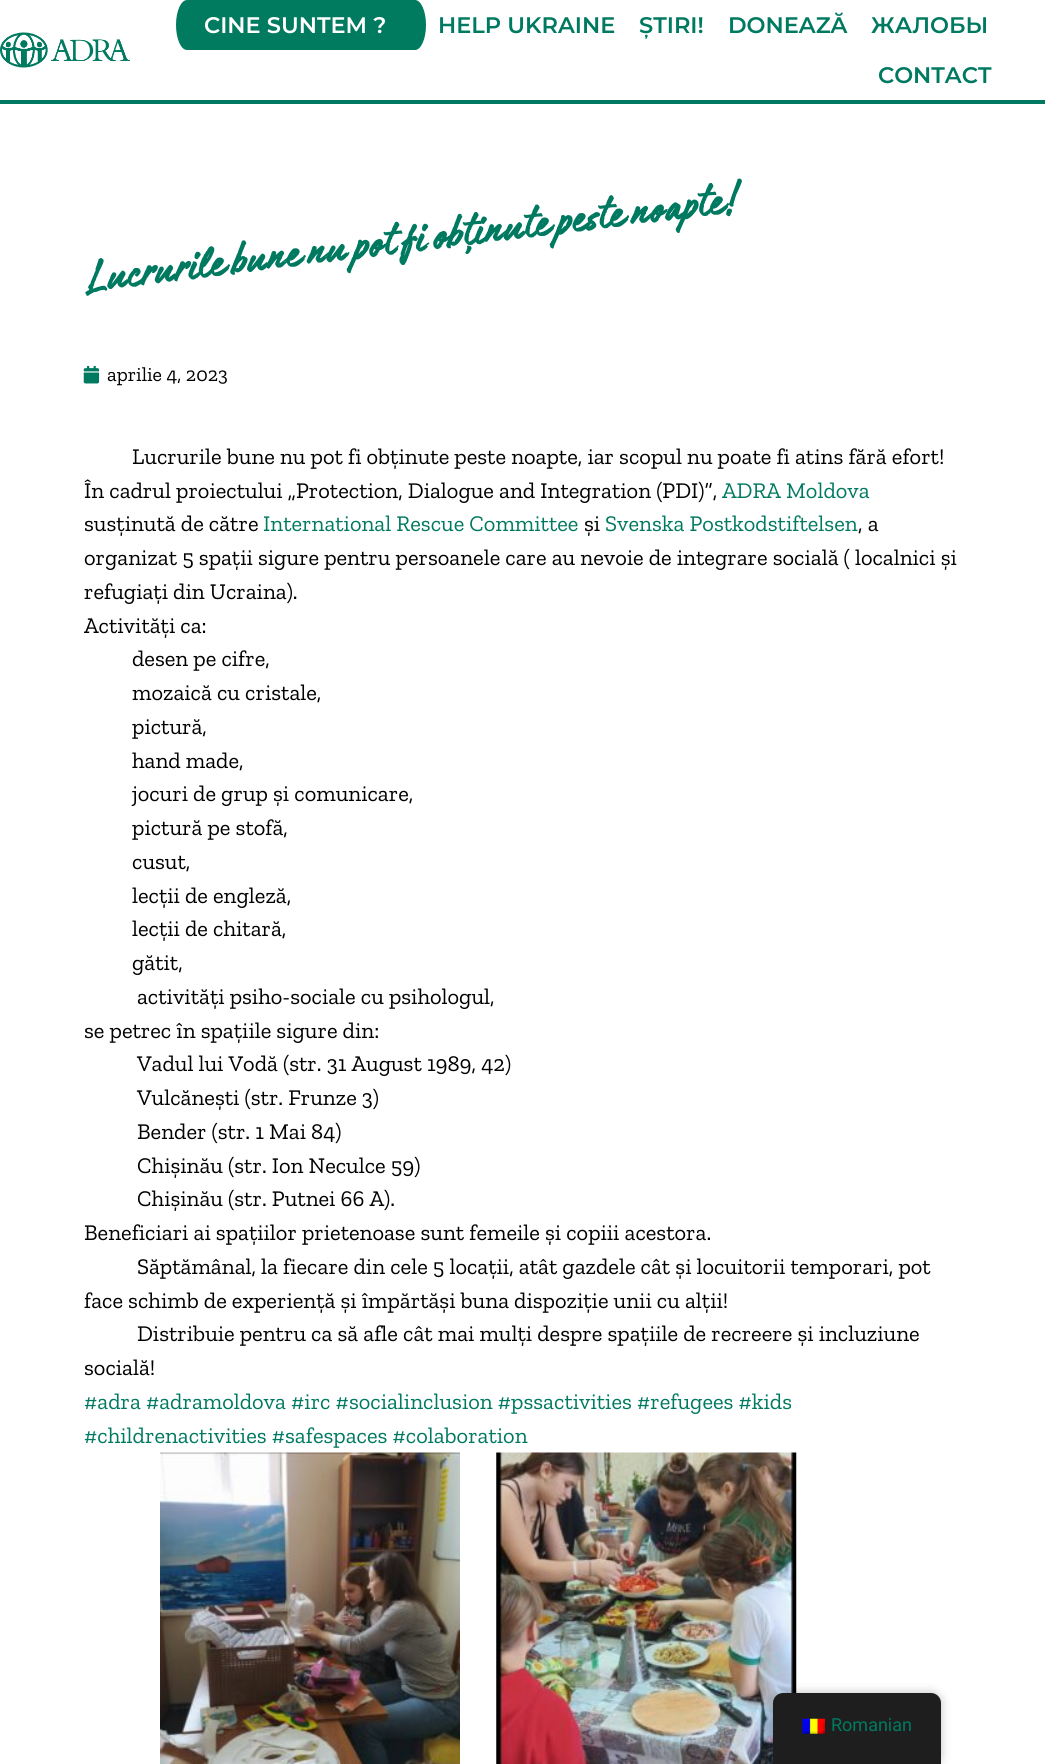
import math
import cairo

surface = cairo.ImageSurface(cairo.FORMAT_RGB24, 1046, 1764)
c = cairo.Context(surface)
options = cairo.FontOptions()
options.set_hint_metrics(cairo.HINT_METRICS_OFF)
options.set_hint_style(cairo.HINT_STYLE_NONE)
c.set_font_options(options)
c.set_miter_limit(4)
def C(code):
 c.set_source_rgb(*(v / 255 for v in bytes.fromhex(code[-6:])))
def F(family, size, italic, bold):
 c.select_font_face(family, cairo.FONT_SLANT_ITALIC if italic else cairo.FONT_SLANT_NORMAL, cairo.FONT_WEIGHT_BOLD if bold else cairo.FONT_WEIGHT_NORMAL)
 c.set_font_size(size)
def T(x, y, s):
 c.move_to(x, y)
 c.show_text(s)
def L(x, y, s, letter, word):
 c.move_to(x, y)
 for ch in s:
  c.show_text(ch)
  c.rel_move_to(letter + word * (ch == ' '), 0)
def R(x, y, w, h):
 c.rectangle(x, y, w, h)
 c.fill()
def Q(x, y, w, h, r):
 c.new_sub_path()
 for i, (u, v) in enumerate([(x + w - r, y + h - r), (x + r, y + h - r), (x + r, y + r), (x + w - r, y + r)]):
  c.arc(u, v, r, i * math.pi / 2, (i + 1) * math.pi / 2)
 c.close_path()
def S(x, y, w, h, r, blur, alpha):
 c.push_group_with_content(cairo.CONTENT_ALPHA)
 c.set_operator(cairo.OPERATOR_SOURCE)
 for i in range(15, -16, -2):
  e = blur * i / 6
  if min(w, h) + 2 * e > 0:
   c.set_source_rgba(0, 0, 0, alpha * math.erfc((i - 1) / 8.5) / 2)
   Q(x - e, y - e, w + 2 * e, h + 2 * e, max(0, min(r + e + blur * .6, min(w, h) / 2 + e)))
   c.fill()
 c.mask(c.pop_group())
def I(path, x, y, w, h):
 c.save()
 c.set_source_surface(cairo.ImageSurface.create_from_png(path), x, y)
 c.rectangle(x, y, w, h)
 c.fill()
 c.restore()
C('ffffff')
c.paint()
C('007960')
R(0,100,1045,4)
I('1.png',0,32,130,36)
C('007b5f')
c.new_path()
c.move_to(187,0)
c.line_to(415,0)
c.curve_to(421,0,426,11,426,25)
c.curve_to(426,39,421,50,415,50)
c.line_to(187,50)
c.curve_to(181,50,176,39,176,25)
c.curve_to(176,11,181,0,187,0)
c.close_path()
c.fill()
F('Montserrat SemiBold',22.5,0,0)
C('ffffff')
T(204,33,'CINE SUNTEM ?')
C('007961')
T(438,33,'HELP UKRAINE')
T(639,33,'ȘTIRI!')
T(728,33,'DONEAZĂ')
T(871,33,'ЖАЛОБЫ')
T(878,83,'CONTACT')
F('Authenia',50,0,1)
c.save()
c.translate(88,292)
c.rotate(-7 * math.pi / 180)
L(0,0,'Lucrurile bune nu pot fi obținute peste noapte!',0,-2)
c.restore()
I('2.png',83,365,17,19)
F('Zilla Slab',20,0,0)
C('000001')
T(107,381,'aprilie 4, 2023')
F('Zilla Slab',22.5,0,0)
T(132,464,'Lucrurile bune nu pot fi obținute peste noapte, iar scopul nu poate fi atins fără efort!')
T(84,498,'În cadrul proiectului „Protection, Dialogue and Integration (PDI)”,')
C('007961')
T(722,498,'ADRA Moldova')
C('000001')
T(84,531,'susținută de către')
C('007961')
T(263,531,'International Rescue Committee')
C('000001')
T(584,531,'și')
C('007961')
T(605,531,'Svenska Postkodstiftelsen')
C('000001')
T(858,531,', a')
T(84,565,'organizat 5 spații sigure pentru persoanele care au nevoie de integrare socială ( localnici și')
T(84,599,'refugiați din Ucraina).')
T(84,633,'Activități ca:')
T(132,666,'desen pe cifre,')
T(132,700,'mozaică cu cristale,')
T(132,734,'pictură,')
T(132,768,'hand made,')
T(132,801,'jocuri de grup și comunicare,')
T(132,835,'pictură pe stofă,')
T(132,869,'cusut,')
T(132,903,'lecții de engleză,')
T(132,936,'lecții de chitară,')
T(132,970,'gătit,')
T(137,1004,'activități psiho-sociale cu psihologul,')
T(84,1038,'se petrec în spațiile sigure din:')
T(137,1071,'Vadul lui Vodă (str. 31 August 1989, 42)')
T(137,1105,'Vulcănești (str. Frunze 3)')
T(137,1139,'Bender (str. 1 Mai 84)')
T(137,1173,'Chișinău (str. Ion Neculce 59)')
T(137,1206,'Chișinău (str. Putnei 66 A).')
T(84,1240,'Beneficiari ai spațiilor prietenoase sunt femeile și copiii acestora.')
T(137,1274,'Săptămânal, la fiecare din cele 5 locații, atât gazdele cât și locuitorii temporari, pot')
T(84,1308,'face schimb de experiență și împărtăși buna dispoziție unii cu alții!')
T(137,1341,'Distribuie pentru ca să afle cât mai mulți despre spațiile de recreere și incluziune')
T(84,1375,'socială!')
C('007961')
T(84,1409,'#adra #adramoldova #irc #socialinclusion #pssactivities #refugees #kids')
T(84,1443,'#childrenactivities #safespaces #colaboration')
I('3.png',160,1452,300,312)
I('4.png',496,1452,301,312)
C('000000')
S(773,1693,168,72,10,5,.25)
C('1e1e1e')
c.new_path()
c.move_to(783,1693)
c.line_to(931,1693)
c.curve_to(936.5,1693,941,1697.5,941,1703)
c.line_to(941,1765)
c.line_to(773,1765)
c.line_to(773,1703)
c.curve_to(773,1697.5,777.5,1693,783,1693)
c.close_path()
c.fill()
I('5.png',802,1718,23,16)
F('Roboto',18,0,0)
C('007961')
T(831,1731,'Romanian')
surface.write_to_png('o.png')
